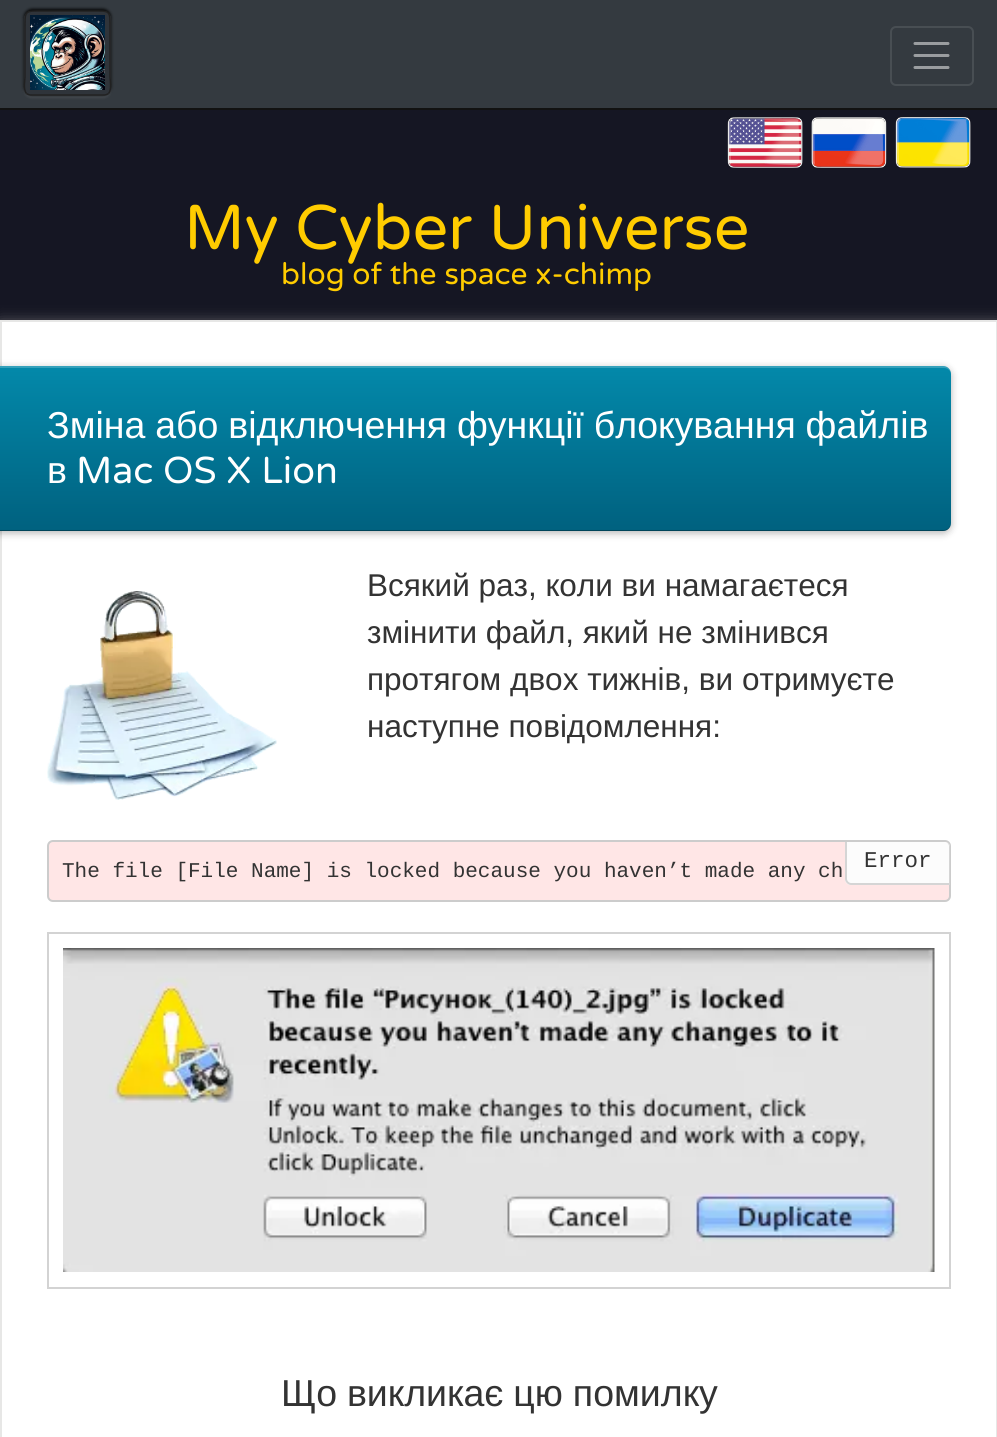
import math
import cairo

surface = cairo.ImageSurface(cairo.FORMAT_RGB24, 997, 1437)
c = cairo.Context(surface)
options = cairo.FontOptions()
options.set_hint_metrics(cairo.HINT_METRICS_OFF)
options.set_hint_style(cairo.HINT_STYLE_NONE)
c.set_font_options(options)
c.set_miter_limit(4)
def C(code):
 c.set_source_rgb(*(v / 255 for v in bytes.fromhex(code[-6:])))
def F(family, size, italic, bold):
 c.select_font_face(family, cairo.FONT_SLANT_ITALIC if italic else cairo.FONT_SLANT_NORMAL, cairo.FONT_WEIGHT_BOLD if bold else cairo.FONT_WEIGHT_NORMAL)
 c.set_font_size(size)
def T(x, y, s):
 c.move_to(x, y)
 c.show_text(s)
def L(x, y, s, letter, word):
 c.move_to(x, y)
 for ch in s:
  c.show_text(ch)
  c.rel_move_to(letter + word * (ch == ' '), 0)
def R(x, y, w, h):
 c.rectangle(x, y, w, h)
 c.fill()
def Q(x, y, w, h, r):
 c.new_sub_path()
 for i, (u, v) in enumerate([(x + w - r, y + h - r), (x + r, y + h - r), (x + r, y + r), (x + w - r, y + r)]):
  c.arc(u, v, r, i * math.pi / 2, (i + 1) * math.pi / 2)
 c.close_path()
def S(x, y, w, h, r, blur, alpha):
 c.push_group_with_content(cairo.CONTENT_ALPHA)
 c.set_operator(cairo.OPERATOR_SOURCE)
 for i in range(15, -16, -2):
  e = blur * i / 6
  if min(w, h) + 2 * e > 0:
   c.set_source_rgba(0, 0, 0, alpha * math.erfc((i - 1) / 8.5) / 2)
   Q(x - e, y - e, w + 2 * e, h + 2 * e, max(0, min(r + e + blur * .6, min(w, h) / 2 + e)))
   c.fill()
 c.mask(c.pop_group())
def I(path, x, y, w, h):
 c.save()
 c.set_source_surface(cairo.ImageSurface.create_from_png(path), x, y)
 c.rectangle(x, y, w, h)
 c.fill()
 c.restore()
C('151623')
c.paint()
C('343a40')
R(0,0,997,108)
C('121212')
R(0,108,997,2)
c.save()
c.set_fill_rule(cairo.FILL_RULE_EVEN_ODD)
c.new_path()
c.move_to(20,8)
c.line_to(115,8)
c.line_to(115,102)
c.line_to(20,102)
c.close_path()
c.move_to(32,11)
c.line_to(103,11)
c.curve_to(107.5,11,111,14.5,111,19)
c.line_to(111,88)
c.curve_to(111,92.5,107.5,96,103,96)
c.line_to(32,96)
c.curve_to(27.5,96,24,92.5,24,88)
c.line_to(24,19)
c.curve_to(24,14.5,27.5,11,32,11)
c.close_path()
c.clip()
C('fdfdfd')
S(24,12,87,86,8,1,.1)
c.restore()
c.save()
c.set_fill_rule(cairo.FILL_RULE_EVEN_ODD)
c.new_path()
c.move_to(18,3)
c.line_to(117,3)
c.line_to(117,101)
c.line_to(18,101)
c.close_path()
c.move_to(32,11)
c.line_to(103,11)
c.curve_to(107.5,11,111,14.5,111,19)
c.line_to(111,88)
c.curve_to(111,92.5,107.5,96,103,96)
c.line_to(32,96)
c.curve_to(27.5,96,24,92.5,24,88)
c.line_to(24,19)
c.curve_to(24,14.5,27.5,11,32,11)
c.close_path()
c.clip()
C('010101')
S(24,9,87,86,8,1.5,1)
c.restore()
c.set_source_rgba(0.004,0.004,0.004,0.1)
Q(24,11,87,85,8)
c.fill()
c.new_path()
c.move_to(108.5,93.5)
c.curve_to(107,94.5,105.5,95,103.5,95)
c.line_to(31.5,95)
c.curve_to(29.5,95,28,94.5,26.5,93.5)
C('222222')
c.set_line_width(1.5)
c.stroke()
c.new_path()
c.move_to(26.5,93.5)
c.curve_to(23,89.5,25,80,25,77)
c.line_to(25,30)
c.curve_to(25,10,24,11,43.5,11)
c.line_to(91.5,11)
c.curve_to(111,11,110,10,110,29.5)
c.line_to(110,77)
c.curve_to(110,80,112,89.5,108.5,93.5)
C('212121')
c.stroke()
I('1.png',30,15,75,75)
Q(891,27,82,58,5)
C('484e53')
c.set_line_width(2)
c.stroke()
c.new_path()
c.move_to(915,43.5)
c.line_to(948,43.5)
c.move_to(915,55.5)
c.line_to(948,55.5)
c.move_to(915,67.5)
c.line_to(948,67.5)
C('9a9da0')
c.set_line_width(3)
c.set_line_cap(cairo.LINE_CAP_ROUND)
c.stroke()
I('2.png',727,117,76,51)
I('3.png',811,117,76,51)
I('4.png',895,117,76,51)
F('Varela Round',63,0,0)
C('ffcc00')
T(184,249,'My Cyber Universe')
F('Varela Round',30,0,0)
T(281,284,'blog of the space x-chimp')
C('838383')
S(0,324,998,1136,0,7.5,1)
C('ffffff')
c.rectangle(1,321,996,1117)
c.fill_preserve()
C('e7e7e6')
c.set_line_width(2)
c.set_line_cap(cairo.LINE_CAP_BUTT)
c.stroke()
C('000000')
S(-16,368,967,165,8,4,.3)
gradient = cairo.LinearGradient(467,366,467,531)
gradient.add_color_stop_rgba(0,0.012,0.537,0.667,1)
gradient.add_color_stop_rgba(1,0,0.38,0.498,1)
c.set_source(gradient)
c.new_path()
c.move_to(-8,366)
c.line_to(943,366)
c.curve_to(947.5,366,951,369.5,951,374)
c.line_to(951,523)
c.curve_to(951,527.5,947.5,531,943,531)
c.line_to(-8,531)
c.close_path()
c.fill()
c.set_source_rgba(0,0,0,0.3)
c.new_path()
c.move_to(-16,530)
c.line_to(-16,531)
c.line_to(943,531)
c.curve_to(948,531,951,527,951,522)
c.curve_to(951,526,948,530,944,530)
c.close_path()
c.fill()
c.set_source_rgba(1,1,1,0.2)
c.new_path()
c.move_to(-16,368)
c.line_to(944,368)
c.curve_to(948,368,951,371,951,375)
c.curve_to(951,370,948,366,943,366)
c.line_to(-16,366)
c.close_path()
c.fill()
F('Liberation Sans',37.5,0,0)
C('ffffff')
L(47,438,'Зміна або відключення функції блокування файлів',0,-.5)
T(47,483,'в')
F('Varela Round',37.5,0,0)
T(76,483,'Mac OS X Lion')
I('5.png',47,591,230,209)
F('Liberation Sans',31.5,0,0)
C('333333')
T(367,596,'Всякий раз, коли ви намагаєтеся')
T(367,643,'змінити файл, який не змінився')
T(367,690,'протягом двох тижнів, ви отримуєте')
T(367,737,'наступне повідомлення:')
C('ffe6e6')
Q(48,841,902,60,5)
c.fill_preserve()
C('cccccc')
c.stroke()
F('Liberation Mono',21,0,0)
C('333333')
T(62,877,'The file [File Name] is locked because you haven’t made any ch')
c.save()
Q(48,842,902,58,5)
c.clip()
C('fcfcfc')
c.new_path()
c.move_to(845,840)
c.line_to(945,840)
c.curve_to(948.5,840,951,842.5,951,846)
c.line_to(951,885)
c.line_to(851,885)
c.curve_to(847.5,885,845,882.5,845,879)
c.close_path()
c.fill()
c.restore()
C('d5d5d5')
c.new_path()
c.move_to(847,842)
c.line_to(847,879)
c.curve_to(847,881,849,883,851,883)
c.line_to(949,883)
c.line_to(949,846)
c.curve_to(949,844,947,842,945,842)
c.curve_to(948,842,950,844,950,847)
c.line_to(950,885)
c.line_to(851,885)
c.curve_to(848,885,845,882,845,879)
c.line_to(845,842)
c.close_path()
c.fill()
F('Liberation Mono',22.5,0,0)
C('333333')
T(864,867,'Error')
c.rectangle(48,933,902,355)
C('d3d3d3')
c.stroke()
I('6.png',63,948,872,324)
F('Liberation Sans',37.5,0,0)
C('333333')
L(281,1406,'Що викликає цю помилку',0,-.5)
surface.write_to_png('o.png')
